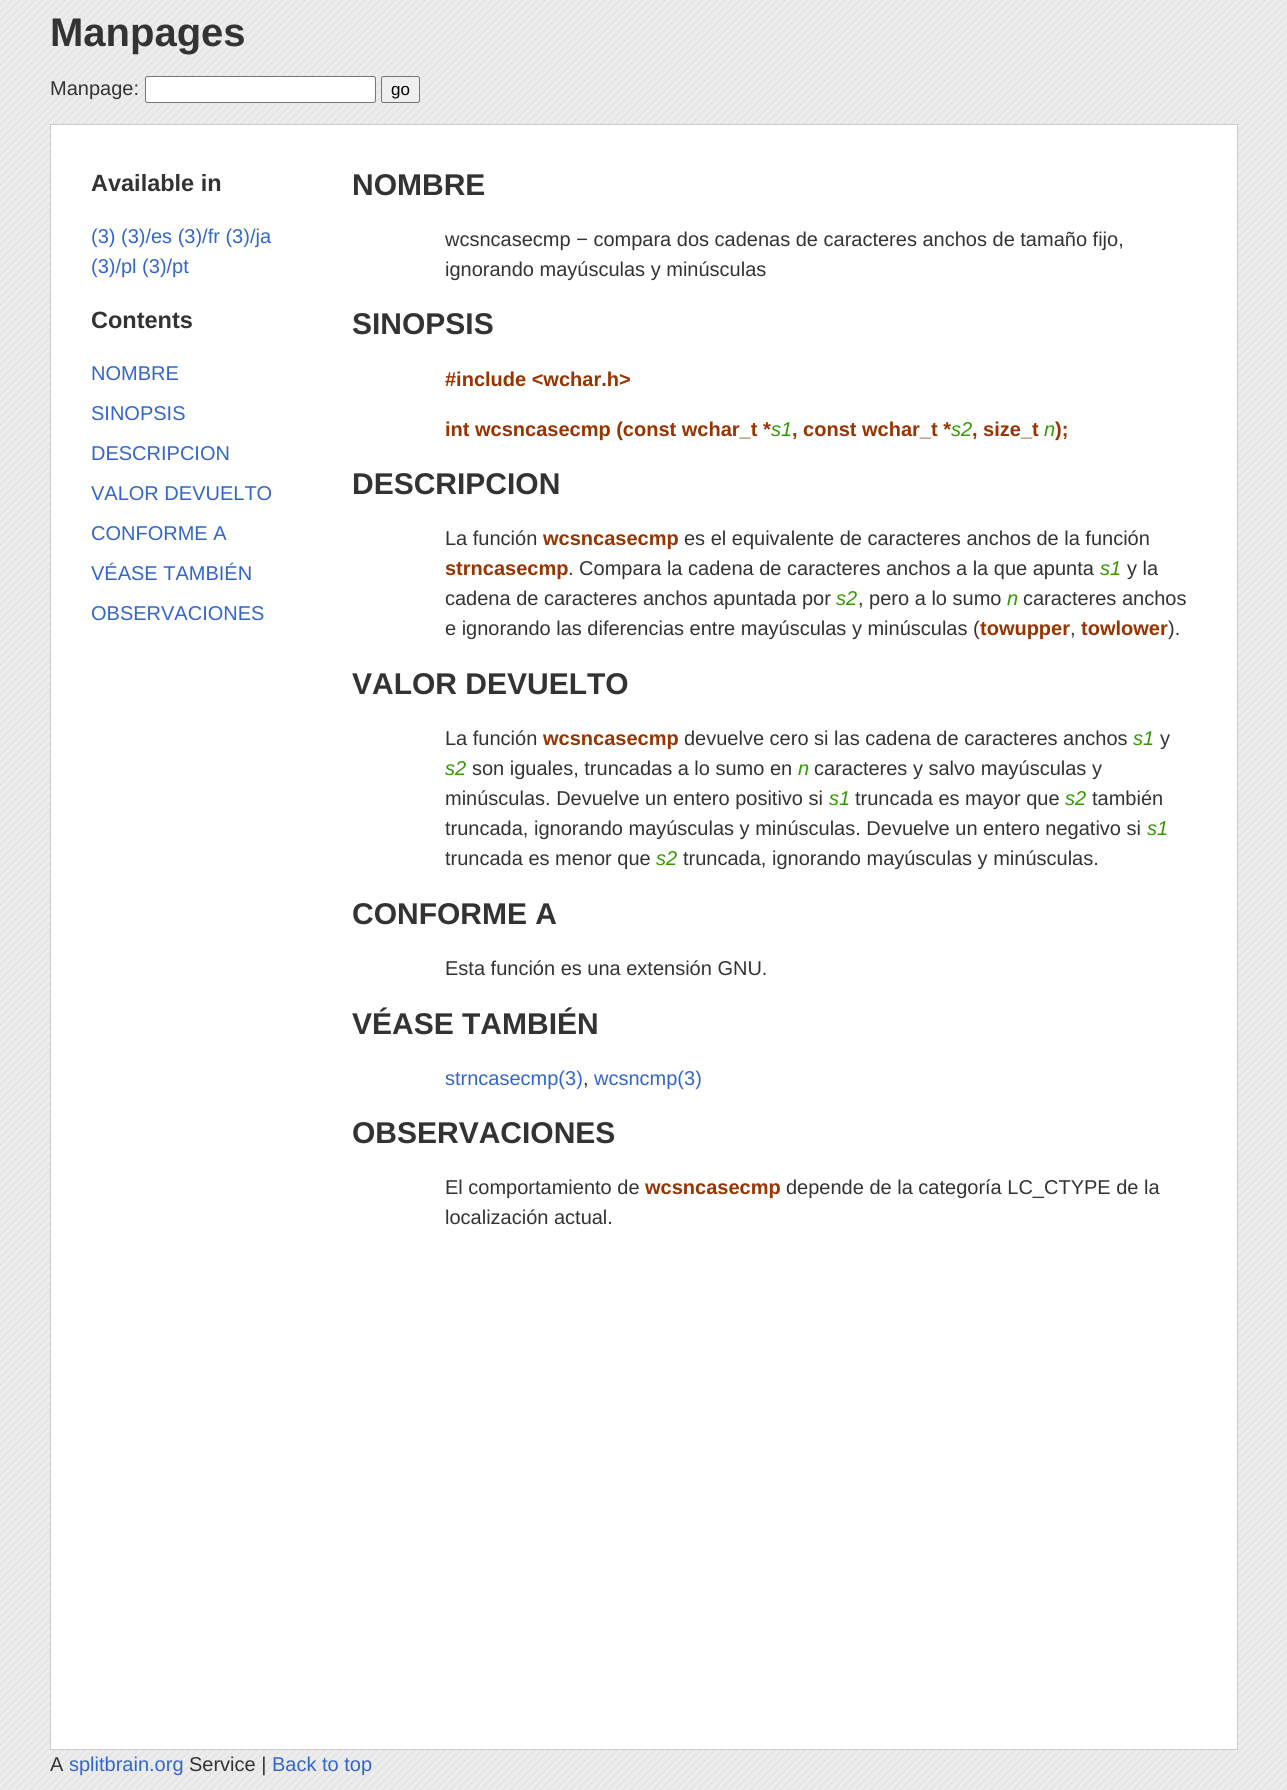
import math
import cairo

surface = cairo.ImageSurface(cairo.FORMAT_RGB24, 1287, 1790)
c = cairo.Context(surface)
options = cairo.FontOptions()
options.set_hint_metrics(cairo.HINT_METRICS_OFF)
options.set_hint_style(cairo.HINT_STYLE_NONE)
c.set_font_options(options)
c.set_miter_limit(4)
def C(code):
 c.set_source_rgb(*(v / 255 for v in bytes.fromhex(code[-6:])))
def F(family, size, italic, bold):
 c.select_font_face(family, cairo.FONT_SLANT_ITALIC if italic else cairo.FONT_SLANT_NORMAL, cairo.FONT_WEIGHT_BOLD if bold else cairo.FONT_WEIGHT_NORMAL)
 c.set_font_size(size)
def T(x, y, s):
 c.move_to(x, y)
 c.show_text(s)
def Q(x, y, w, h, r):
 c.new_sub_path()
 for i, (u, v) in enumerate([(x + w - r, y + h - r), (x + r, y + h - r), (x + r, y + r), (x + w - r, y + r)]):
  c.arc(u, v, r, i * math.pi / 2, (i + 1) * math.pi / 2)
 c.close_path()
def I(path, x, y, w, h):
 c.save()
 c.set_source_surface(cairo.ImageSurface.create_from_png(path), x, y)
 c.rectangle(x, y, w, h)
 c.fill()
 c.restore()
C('ffffff')
c.paint()
I('1.png',0,0,1287,1790)
F('Liberation Sans',40,0,1)
C('333333')
T(50,46,'Manpages')
F('Liberation Sans',20,0,0)
T(50,95,'Manpage:')
C('ffffff')
Q(145.5,76.5,230,26,2)
c.fill_preserve()
C('767676')
c.set_line_width(1)
c.stroke()
C('efefef')
Q(381.5,76.5,38,26,2)
c.fill_preserve()
C('767676')
c.stroke()
F('Liberation Sans',17,0,0)
C('000000')
T(391,95,'go')
C('ffffff')
c.rectangle(50.5,124.5,1187,1625)
c.fill_preserve()
C('cccccc')
c.stroke()
F('Liberation Sans',23.5,0,1)
C('333333')
T(91,191,'Available in')
F('Liberation Sans',20,0,0)
C('3366cc')
T(91,243,'(3) (3)/es (3)/fr (3)/ja')
T(91,273,'(3)/pl (3)/pt')
F('Liberation Sans',23.5,0,1)
C('333333')
T(91,328,'Contents')
F('Liberation Sans',20,0,0)
C('3366cc')
T(91,380,'NOMBRE')
T(91,420,'SINOPSIS')
T(91,460,'DESCRIPCION')
T(91,500,'VALOR DEVUELTO')
T(91,540,'CONFORME A')
T(91,580,'VÉASE TAMBIÉN')
T(91,620,'OBSERVACIONES')
F('Liberation Sans',30,0,1)
C('333333')
T(352,195,'NOMBRE')
F('Liberation Sans',20,0,0)
T(445,246,'wcsncasecmp − compara dos cadenas de caracteres anchos de tamaño fijo,')
T(445,276,'ignorando mayúsculas y minúsculas')
F('Liberation Sans',30,0,1)
T(352,334,'SINOPSIS')
F('Liberation Sans',20,0,1)
C('993300')
T(445,386,'#include <wchar.h>')
T(445,436,'int wcsncasecmp (const wchar_t *')
F('Liberation Sans',20,1,0)
C('339900')
T(771,436,'s1')
F('Liberation Sans',20,0,1)
C('993300')
T(792,436,', const wchar_t *')
F('Liberation Sans',20,1,0)
C('339900')
T(951,436,'s2')
F('Liberation Sans',20,0,1)
C('993300')
T(972,436,', size_t')
F('Liberation Sans',20,1,0)
C('339900')
T(1044,436,'n')
F('Liberation Sans',20,0,1)
C('993300')
T(1055,436,');')
F('Liberation Sans',30,0,1)
C('333333')
T(352,494,'DESCRIPCION')
F('Liberation Sans',20,0,0)
T(445,545,'La función')
F('Liberation Sans',20,0,1)
C('993300')
T(543,545,'wcsncasecmp')
F('Liberation Sans',20,0,0)
C('333333')
T(684,545,'es el equivalente de caracteres anchos de la función')
F('Liberation Sans',20,0,1)
C('993300')
T(445,575,'strncasecmp')
F('Liberation Sans',20,0,0)
C('333333')
T(568,575,'. Compara la cadena de caracteres anchos a la que apunta')
F('Liberation Sans',20,1,0)
C('339900')
T(1100,575,'s1')
F('Liberation Sans',20,0,0)
C('333333')
T(1127,575,'y la')
T(445,605,'cadena de caracteres anchos apuntada por')
F('Liberation Sans',20,1,0)
C('339900')
T(836,605,'s2')
F('Liberation Sans',20,0,0)
C('333333')
T(858,605,', pero a lo sumo')
F('Liberation Sans',20,1,0)
C('339900')
T(1007,605,'n')
F('Liberation Sans',20,0,0)
C('333333')
T(1023,605,'caracteres anchos')
T(445,635,'e ignorando las diferencias entre mayúsculas y minúsculas (')
F('Liberation Sans',20,0,1)
C('993300')
T(980,635,'towupper')
F('Liberation Sans',20,0,0)
C('333333')
T(1070,635,',')
F('Liberation Sans',20,0,1)
C('993300')
T(1081,635,'towlower')
F('Liberation Sans',20,0,0)
C('333333')
T(1168,635,').')
F('Liberation Sans',30,0,1)
T(352,694,'VALOR DEVUELTO')
F('Liberation Sans',20,0,0)
T(445,745,'La función')
F('Liberation Sans',20,0,1)
C('993300')
T(543,745,'wcsncasecmp')
F('Liberation Sans',20,0,0)
C('333333')
T(684,745,'devuelve cero si las cadena de caracteres anchos')
F('Liberation Sans',20,1,0)
C('339900')
T(1133,745,'s1')
F('Liberation Sans',20,0,0)
C('333333')
T(1160,745,'y')
F('Liberation Sans',20,1,0)
C('339900')
T(445,775,'s2')
F('Liberation Sans',20,0,0)
C('333333')
T(472,775,'son iguales, truncadas a lo sumo en')
F('Liberation Sans',20,1,0)
C('339900')
T(798,775,'n')
F('Liberation Sans',20,0,0)
C('333333')
T(814,775,'caracteres y salvo mayúsculas y')
T(445,805,'minúsculas. Devuelve un entero positivo si')
F('Liberation Sans',20,1,0)
C('339900')
T(829,805,'s1')
F('Liberation Sans',20,0,0)
C('333333')
T(855,805,'truncada es mayor que')
F('Liberation Sans',20,1,0)
C('339900')
T(1065,805,'s2')
F('Liberation Sans',20,0,0)
C('333333')
T(1092,805,'también')
T(445,835,'truncada, ignorando mayúsculas y minúsculas. Devuelve un entero negativo si')
F('Liberation Sans',20,1,0)
C('339900')
T(1147,835,'s1')
F('Liberation Sans',20,0,0)
C('333333')
T(445,865,'truncada es menor que')
F('Liberation Sans',20,1,0)
C('339900')
T(656,865,'s2')
F('Liberation Sans',20,0,0)
C('333333')
T(683,865,'truncada, ignorando mayúsculas y minúsculas.')
F('Liberation Sans',30,0,1)
T(352,924,'CONFORME A')
F('Liberation Sans',20,0,0)
T(445,975,'Esta función es una extensión GNU.')
F('Liberation Sans',30,0,1)
T(352,1034,'VÉASE TAMBIÉN')
F('Liberation Sans',20,0,0)
C('3366cc')
T(445,1085,'strncasecmp(3)')
C('333333')
T(583,1085,',')
C('3366cc')
T(594,1085,'wcsncmp(3)')
F('Liberation Sans',30,0,1)
C('333333')
T(352,1143,'OBSERVACIONES')
F('Liberation Sans',20,0,0)
T(445,1194,'El comportamiento de')
F('Liberation Sans',20,0,1)
C('993300')
T(645,1194,'wcsncasecmp')
F('Liberation Sans',20,0,0)
C('333333')
T(786,1194,'depende de la categoría LC_CTYPE de la')
T(445,1224,'localización actual.')
T(50,1771,'A')
C('3366cc')
T(69,1771,'splitbrain.org')
C('333333')
T(189,1771,'Service |')
C('3366cc')
T(272,1771,'Back to top')
surface.write_to_png('o.png')
